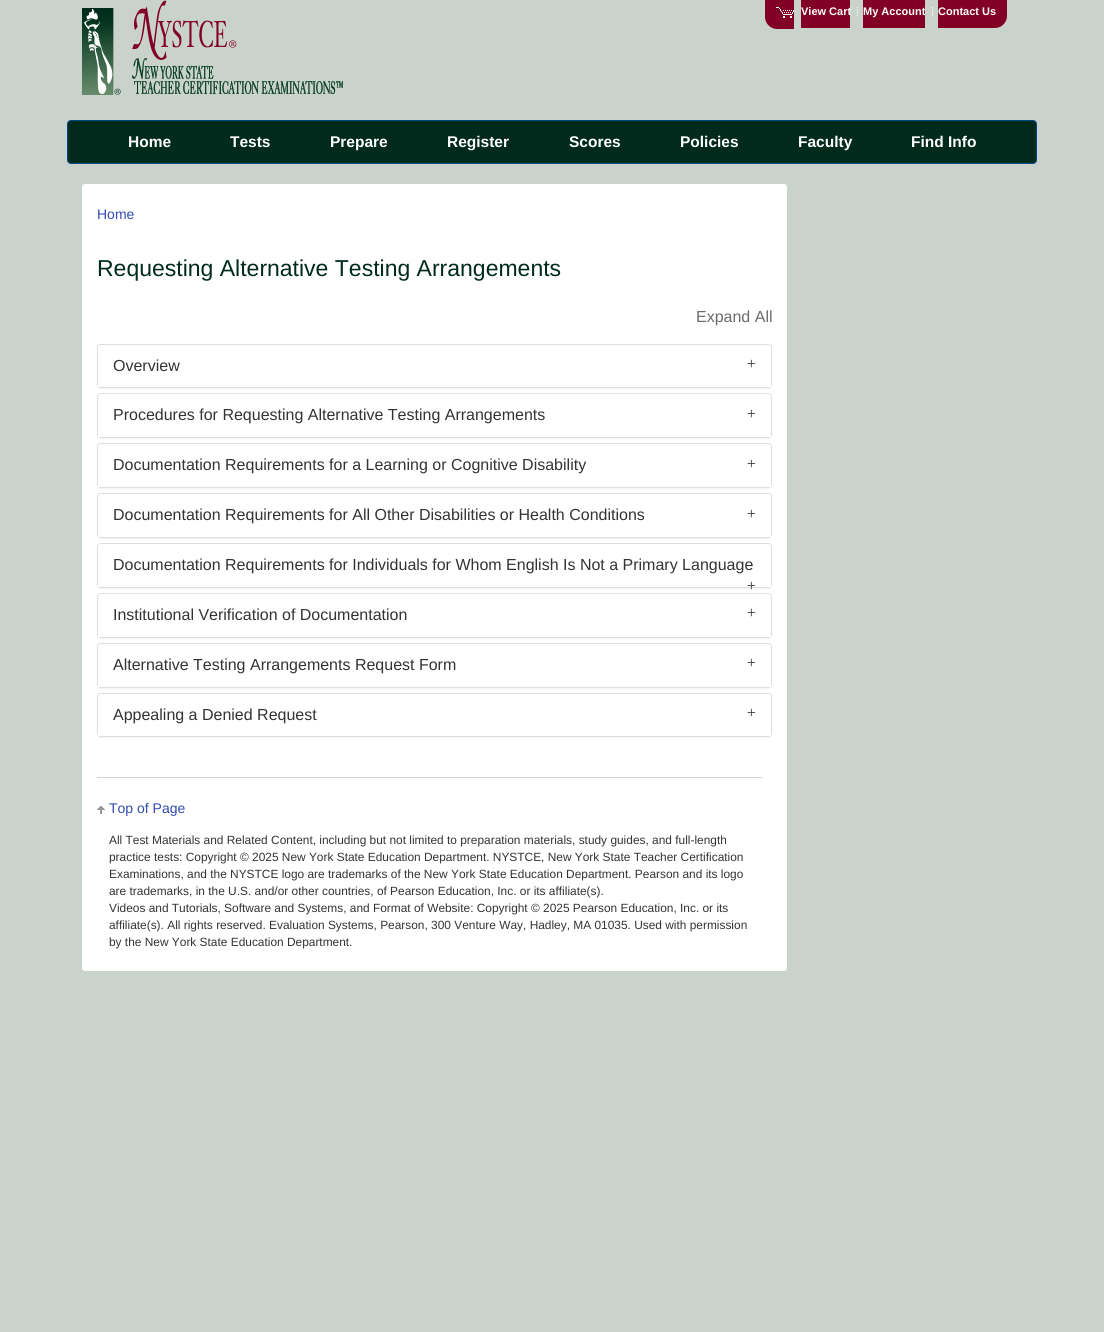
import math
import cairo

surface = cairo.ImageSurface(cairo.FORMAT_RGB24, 1104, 1332)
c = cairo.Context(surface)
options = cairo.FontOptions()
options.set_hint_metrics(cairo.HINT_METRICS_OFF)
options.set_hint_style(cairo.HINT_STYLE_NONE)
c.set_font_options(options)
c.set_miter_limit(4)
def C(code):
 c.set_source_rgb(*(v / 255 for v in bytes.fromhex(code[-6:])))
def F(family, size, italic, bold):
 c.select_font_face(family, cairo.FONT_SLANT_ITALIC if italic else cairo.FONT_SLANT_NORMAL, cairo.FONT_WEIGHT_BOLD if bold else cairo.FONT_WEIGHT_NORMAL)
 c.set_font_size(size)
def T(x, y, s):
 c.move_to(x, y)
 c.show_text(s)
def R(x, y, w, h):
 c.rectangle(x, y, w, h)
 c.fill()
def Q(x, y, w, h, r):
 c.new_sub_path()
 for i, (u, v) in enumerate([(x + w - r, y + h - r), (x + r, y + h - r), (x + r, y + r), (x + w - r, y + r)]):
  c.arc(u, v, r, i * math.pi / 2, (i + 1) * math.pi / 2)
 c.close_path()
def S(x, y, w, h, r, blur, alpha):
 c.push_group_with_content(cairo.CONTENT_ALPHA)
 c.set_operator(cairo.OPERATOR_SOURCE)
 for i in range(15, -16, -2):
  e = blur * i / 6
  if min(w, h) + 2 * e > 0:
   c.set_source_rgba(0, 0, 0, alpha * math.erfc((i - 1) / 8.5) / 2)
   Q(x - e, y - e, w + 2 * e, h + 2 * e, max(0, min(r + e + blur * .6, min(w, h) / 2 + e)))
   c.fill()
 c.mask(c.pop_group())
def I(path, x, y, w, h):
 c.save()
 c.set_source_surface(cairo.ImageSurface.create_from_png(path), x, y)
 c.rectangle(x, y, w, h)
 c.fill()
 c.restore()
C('cad3cb')
c.paint()
I('1.png',82,0,261,95)
C('820024')
c.new_path()
c.move_to(765,-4)
c.line_to(794,-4)
c.line_to(794,29)
c.line_to(777,29)
c.curve_to(770.5,29,765,23.5,765,17)
c.close_path()
c.fill()
I('2.png',776,7,18,11)
R(801,0,49,28)
F('Liberation Sans',11,0,1)
C('ffffff')
T(801,15,'View Cart')
I('3.png',857,7,1,9)
C('820024')
R(863,0,62,28)
C('ffffff')
T(863,15,'My Account')
I('3.png',932,7,1,9)
C('820024')
c.new_path()
c.move_to(938,-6)
c.line_to(1007,-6)
c.line_to(1007,16)
c.curve_to(1007,22.5,1001.5,28,995,28)
c.line_to(938,28)
c.close_path()
c.fill()
C('ffffff')
T(938,15,'Contact Us')
C('002b1c')
Q(67.5,120.5,969,43,3.5)
c.fill_preserve()
C('004b85')
c.set_line_width(1)
c.stroke()
F('Liberation Sans',15.5,0,1)
C('ffffff')
T(128,147,'Home')
T(230,147,'Tests')
T(330,147,'Prepare')
T(447,147,'Register')
T(569,147,'Scores')
T(680,147,'Policies')
T(798,147,'Faculty')
T(911,147,'Find Info')
Q(82,184,705,787,3)
c.fill()
F('Liberation Sans',14,0,0)
C('324aae')
T(97,219,'Home')
F('Liberation Sans',23,0,0)
C('002b1c')
T(97,276,'Requesting Alternative Testing Arrangements')
F('Liberation Sans',16,0,0)
C('6a6c6f')
T(696,322,'Expand All')
C('000000')
S(97,345,675,44,4,.5,.05)
Q(97.5,344.5,674,43,3.5)
C('dddddd')
c.stroke()
C('ffffff')
c.new_path()
c.move_to(101,345)
c.line_to(768,345)
c.curve_to(769.5,345,771,346.5,771,348)
c.line_to(771,387)
c.line_to(98,387)
c.line_to(98,348)
c.curve_to(98,346.5,99.5,345,101,345)
c.close_path()
c.fill()
C('333333')
T(113,371,'Overview')
F('Liberation Serif',16,0,0)
c.save()
c.translate(746,359)
c.rotate(90 * math.pi / 180)
T(0,0,'+')
c.restore()
C('000000')
S(97,394,675,45,4,.5,.05)
Q(97.5,393.5,674,44,3.5)
C('dddddd')
c.stroke()
C('ffffff')
c.new_path()
c.move_to(101,394)
c.line_to(768,394)
c.curve_to(769.5,394,771,395.5,771,397)
c.line_to(771,437)
c.line_to(98,437)
c.line_to(98,397)
c.curve_to(98,395.5,99.5,394,101,394)
c.close_path()
c.fill()
F('Liberation Sans',16,0,0)
C('333333')
T(113,420,'Procedures for Requesting Alternative Testing Arrangements')
F('Liberation Serif',16,0,0)
c.save()
c.translate(746,409)
c.rotate(90 * math.pi / 180)
T(0,0,'+')
c.restore()
C('000000')
S(97,444,675,45,4,.5,.05)
Q(97.5,443.5,674,44,3.5)
C('dddddd')
c.stroke()
C('ffffff')
c.new_path()
c.move_to(101,444)
c.line_to(768,444)
c.curve_to(769.5,444,771,445.5,771,447)
c.line_to(771,487)
c.line_to(98,487)
c.line_to(98,447)
c.curve_to(98,445.5,99.5,444,101,444)
c.close_path()
c.fill()
F('Liberation Sans',16,0,0)
C('333333')
T(113,470,'Documentation Requirements for a Learning or Cognitive Disability')
F('Liberation Serif',16,0,0)
c.save()
c.translate(746,459)
c.rotate(90 * math.pi / 180)
T(0,0,'+')
c.restore()
C('000000')
S(97,494,675,45,4,.5,.05)
Q(97.5,493.5,674,44,3.5)
C('dddddd')
c.stroke()
C('ffffff')
c.new_path()
c.move_to(101,494)
c.line_to(768,494)
c.curve_to(769.5,494,771,495.5,771,497)
c.line_to(771,537)
c.line_to(98,537)
c.line_to(98,497)
c.curve_to(98,495.5,99.5,494,101,494)
c.close_path()
c.fill()
F('Liberation Sans',16,0,0)
C('333333')
T(113,520,'Documentation Requirements for All Other Disabilities or Health Conditions')
F('Liberation Serif',16,0,0)
c.save()
c.translate(746,509)
c.rotate(90 * math.pi / 180)
T(0,0,'+')
c.restore()
C('000000')
S(97,544,675,45,4,.5,.05)
Q(97.5,543.5,674,44,3.5)
C('dddddd')
c.stroke()
C('ffffff')
c.new_path()
c.move_to(101,544)
c.line_to(768,544)
c.curve_to(769.5,544,771,545.5,771,547)
c.line_to(771,587)
c.line_to(98,587)
c.line_to(98,547)
c.curve_to(98,545.5,99.5,544,101,544)
c.close_path()
c.fill()
F('Liberation Sans',16,0,0)
C('333333')
T(113,570,'Documentation Requirements for Individuals for Whom English Is Not a Primary Language')
F('Liberation Serif',16,0,0)
c.save()
c.translate(746,581)
c.rotate(90 * math.pi / 180)
T(0,0,'+')
c.restore()
C('000000')
S(97,594,675,45,4,.5,.05)
Q(97.5,593.5,674,44,3.5)
C('dddddd')
c.stroke()
C('ffffff')
c.new_path()
c.move_to(101,594)
c.line_to(768,594)
c.curve_to(769.5,594,771,595.5,771,597)
c.line_to(771,637)
c.line_to(98,637)
c.line_to(98,597)
c.curve_to(98,595.5,99.5,594,101,594)
c.close_path()
c.fill()
F('Liberation Sans',16,0,0)
C('333333')
T(113,620,'Institutional Verification of Documentation')
F('Liberation Serif',16,0,0)
c.save()
c.translate(746,608)
c.rotate(90 * math.pi / 180)
T(0,0,'+')
c.restore()
C('000000')
S(97,644,675,45,4,.5,.05)
Q(97.5,643.5,674,44,3.5)
C('dddddd')
c.stroke()
C('ffffff')
c.new_path()
c.move_to(101,644)
c.line_to(768,644)
c.curve_to(769.5,644,771,645.5,771,647)
c.line_to(771,687)
c.line_to(98,687)
c.line_to(98,647)
c.curve_to(98,645.5,99.5,644,101,644)
c.close_path()
c.fill()
F('Liberation Sans',16,0,0)
C('333333')
T(113,670,'Alternative Testing Arrangements Request Form')
F('Liberation Serif',16,0,0)
c.save()
c.translate(746,658)
c.rotate(90 * math.pi / 180)
T(0,0,'+')
c.restore()
C('000000')
S(97,694,675,44,4,.5,.05)
Q(97.5,693.5,674,43,3.5)
C('dddddd')
c.stroke()
C('ffffff')
c.new_path()
c.move_to(101,694)
c.line_to(768,694)
c.curve_to(769.5,694,771,695.5,771,697)
c.line_to(771,736)
c.line_to(98,736)
c.line_to(98,697)
c.curve_to(98,695.5,99.5,694,101,694)
c.close_path()
c.fill()
F('Liberation Sans',16,0,0)
C('333333')
T(113,720,'Appealing a Denied Request')
F('Liberation Serif',16,0,0)
c.save()
c.translate(746,708)
c.rotate(90 * math.pi / 180)
T(0,0,'+')
c.restore()
C('d0d0d0')
R(97,777,665,1)
I('4.png',97,806,8,8)
F('Liberation Sans',14,0,0)
C('324aae')
T(109,813,'Top of Page')
F('Liberation Sans',11.9,0,0)
C('333333')
T(109,844,'All Test Materials and Related Content, including but not limited to preparation materials, study guides, and full-length')
T(109,861,'practice tests: Copyright © 2025 New York State Education Department. NYSTCE, New York State Teacher Certification')
T(109,878,'Examinations, and the NYSTCE logo are trademarks of the New York State Education Department. Pearson and its logo')
T(109,895,'are trademarks, in the U.S. and/or other countries, of Pearson Education, Inc. or its affiliate(s).')
T(109,912,'Videos and Tutorials, Software and Systems, and Format of Website: Copyright © 2025 Pearson Education, Inc. or its')
T(109,929,'affiliate(s). All rights reserved. Evaluation Systems, Pearson, 300 Venture Way, Hadley, MA 01035. Used with permission')
T(109,946,'by the New York State Education Department.')
surface.write_to_png('o.png')
